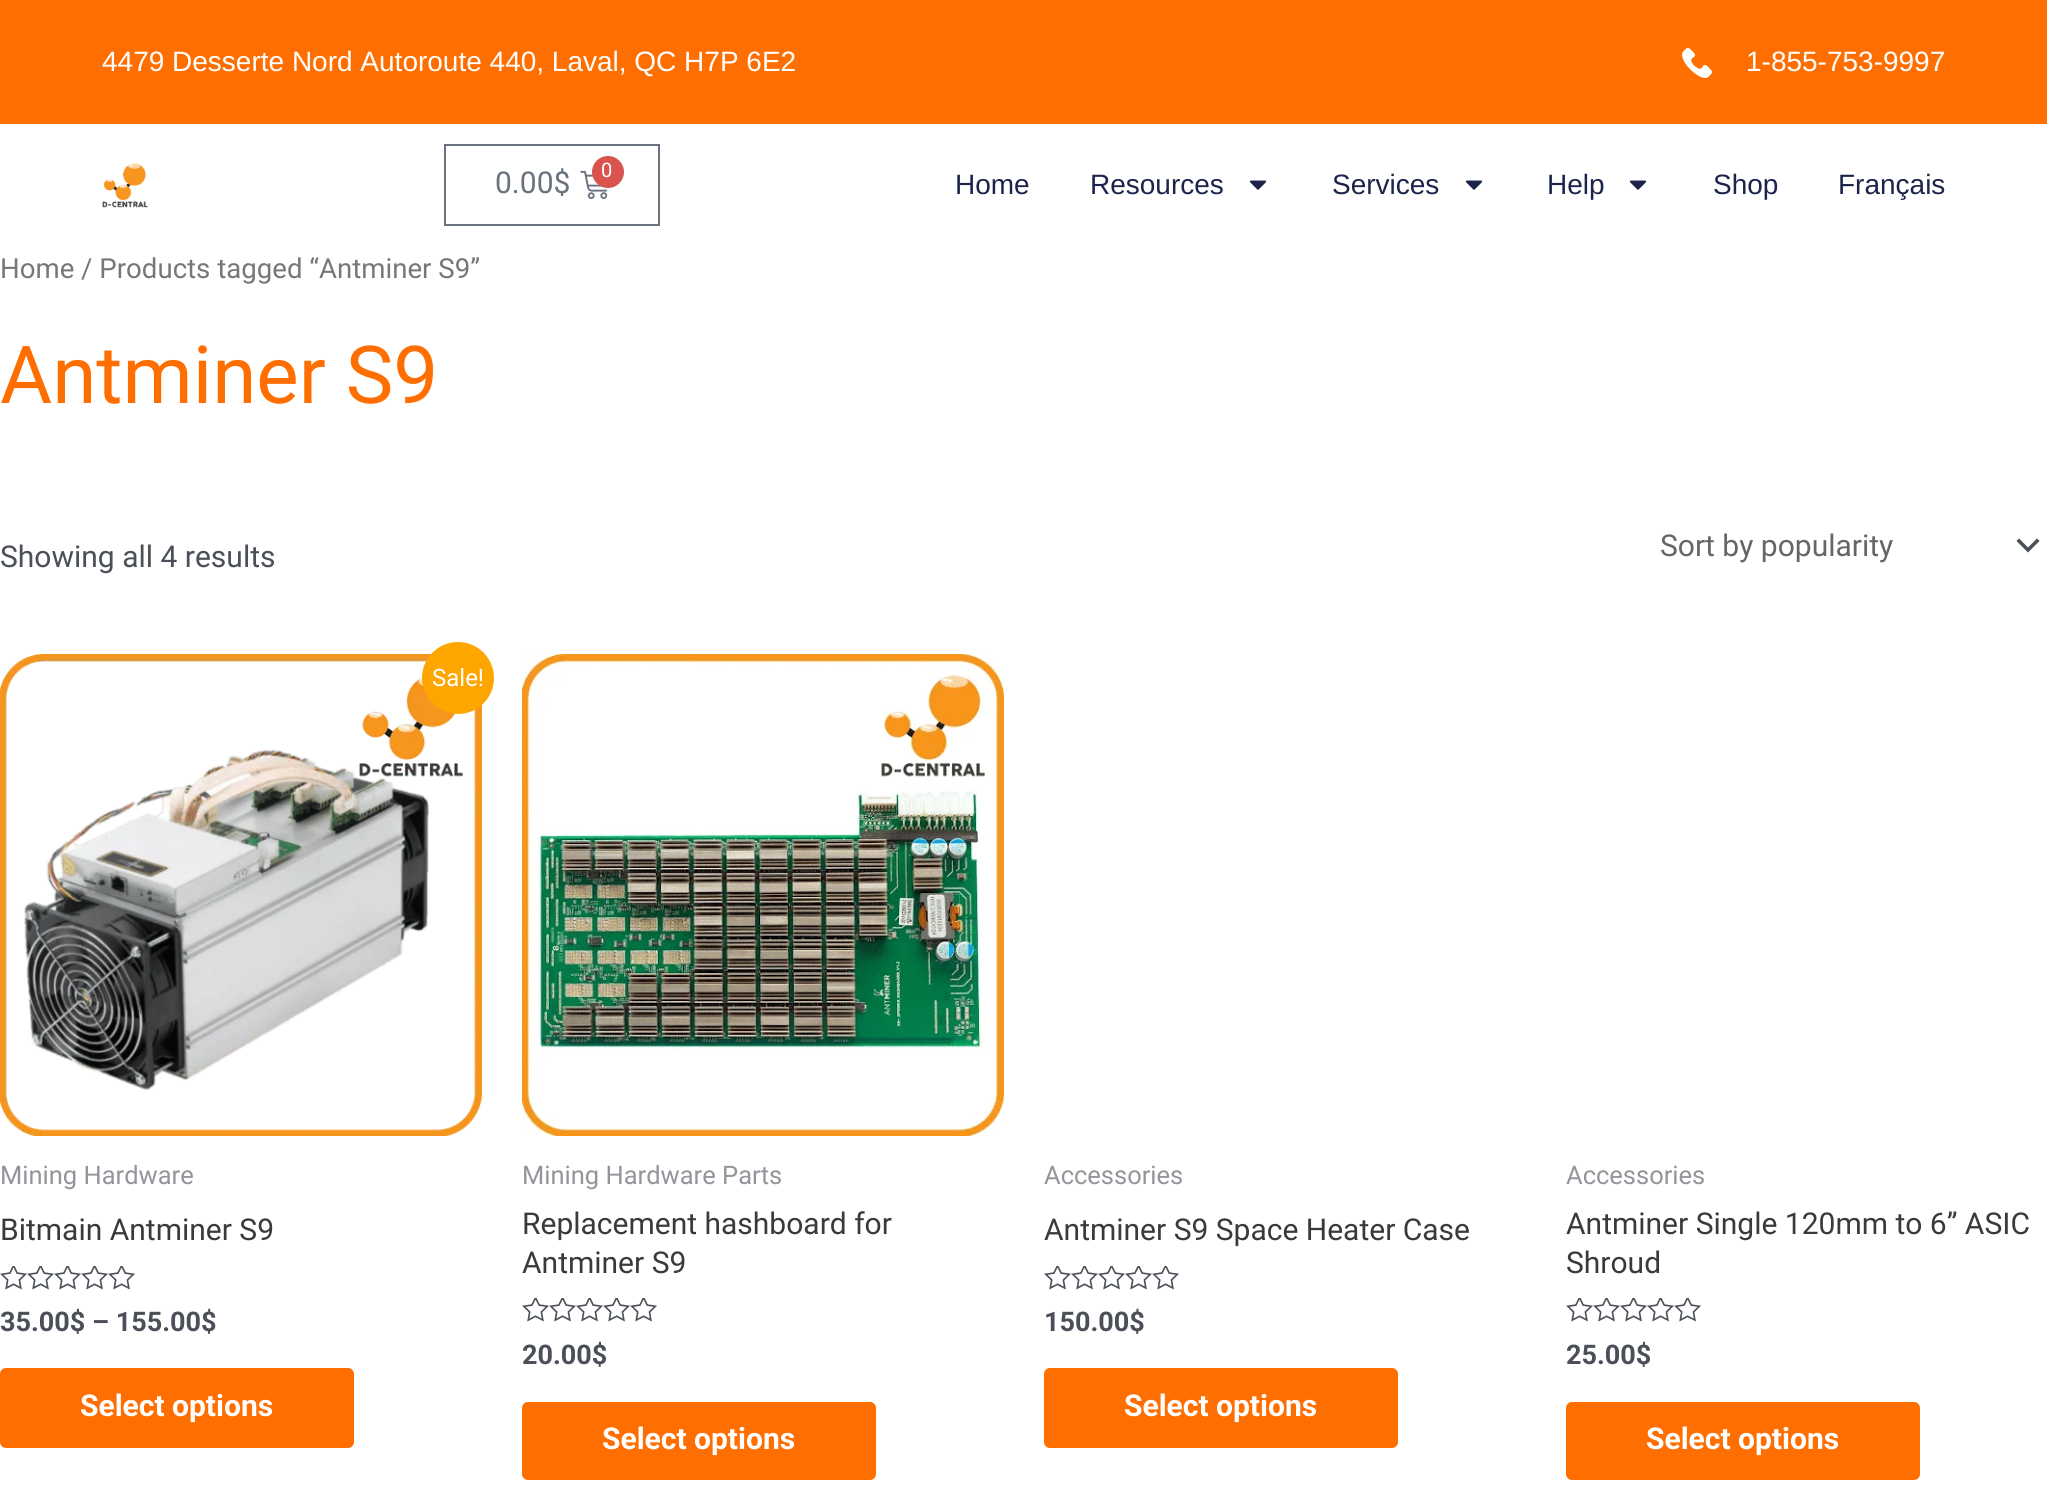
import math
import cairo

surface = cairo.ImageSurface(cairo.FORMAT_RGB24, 2047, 1512)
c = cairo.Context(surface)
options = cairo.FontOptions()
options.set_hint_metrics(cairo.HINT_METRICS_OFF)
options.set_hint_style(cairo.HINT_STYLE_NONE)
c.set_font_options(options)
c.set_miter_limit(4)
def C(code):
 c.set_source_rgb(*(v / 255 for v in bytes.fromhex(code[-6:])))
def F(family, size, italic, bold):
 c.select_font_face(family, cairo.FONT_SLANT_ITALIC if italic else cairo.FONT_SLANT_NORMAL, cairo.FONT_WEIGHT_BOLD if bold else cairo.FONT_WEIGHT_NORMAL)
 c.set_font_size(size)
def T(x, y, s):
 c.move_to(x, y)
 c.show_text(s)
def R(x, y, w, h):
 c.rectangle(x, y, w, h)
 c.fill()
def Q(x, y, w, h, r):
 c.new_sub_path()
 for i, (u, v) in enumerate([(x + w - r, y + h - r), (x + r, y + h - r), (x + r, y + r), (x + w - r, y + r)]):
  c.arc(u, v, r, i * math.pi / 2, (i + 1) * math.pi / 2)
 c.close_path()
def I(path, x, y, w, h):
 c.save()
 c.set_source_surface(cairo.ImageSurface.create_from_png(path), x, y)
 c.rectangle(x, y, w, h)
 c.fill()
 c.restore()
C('ffffff')
c.paint()
C('ff6e00')
R(0,0,2047,124)
F('Liberation Sans',28,0,0)
C('ffffff')
T(102,71,'4479 Desserte Nord Autoroute 440, Laval, QC H7P 6E2')
I('1.png',1682,48,30,30)
T(1746,71,'1-855-753-9997')
I('2.png',102,163,46,45)
c.rectangle(445,145,214,80)
C('69727d')
c.stroke()
F('Roboto',30,0,0)
T(495,193,'0.00$')
I('3.png',580,170,28,29)
C('d9534f')
c.arc(608,172,16,0,2 * math.pi)
c.fill()
F('Roboto',20,0,0)
C('ffffff')
T(601,177,'0')
F('Liberation Sans',28,0,0)
C('1c244b')
T(955,194,'Home')
T(1090,194,'Resources')
I('4.png',1249,180,18,10)
T(1332,194,'Services')
I('4.png',1465,180,18,10)
T(1547,194,'Help')
I('4.png',1629,180,18,10)
T(1713,194,'Shop')
T(1838,194,'Français')
F('Roboto',27.6,0,0)
C('777777')
T(0,278,'Home / Products tagged “Antminer S9”')
F('Roboto',80,0,0)
C('ff6e00')
T(0,403,'Antminer S9')
F('Roboto',30,0,0)
C('4b4f58')
T(0,567,'Showing all 4 results')
c.new_path()
c.move_to(2016.5,541)
c.line_to(2028,552.5)
c.line_to(2039.5,541)
c.line_to(2037,538.5)
c.line_to(2028,547.5)
c.line_to(2019,538.5)
c.close_path()
c.fill()
C('666666')
T(1660,556,'Sort by popularity')
I('5.png',0,654,482,482)
C('ffa500')
c.arc(458,678,36,0,2 * math.pi)
c.fill()
F('Roboto',24,0,0)
C('ffffff')
T(432,686,'Sale!')
F('Roboto',25.5,0,0)
C('93959b')
T(0,1184,'Mining Hardware')
F('Roboto',30,0,0)
C('3a3a3a')
T(0,1240,'Bitmain Antminer S9')
I('6.png',0,1266,135,24)
F('Roboto',27,0,1)
C('4b4f58')
T(0,1331,'35.00$ – 155.00$')
C('ff6e00')
Q(0,1368,354,80,6)
c.fill()
F('Roboto',30,0,1)
C('ffffff')
T(80,1416,'Select options')
I('7.png',522,654,482,482)
F('Roboto',25.5,0,0)
C('93959b')
T(522,1184,'Mining Hardware Parts')
F('Roboto',30,0,0)
C('3a3a3a')
T(522,1234,'Replacement hashboard for')
T(522,1273,'Antminer S9')
I('6.png',522,1298,135,24)
F('Roboto',27,0,1)
C('4b4f58')
T(522,1364,'20.00$')
C('ff6e00')
Q(522,1402,354,78,6)
c.fill()
F('Roboto',30,0,1)
C('ffffff')
T(602,1449,'Select options')
F('Roboto',25.5,0,0)
C('93959b')
T(1044,1184,'Accessories')
F('Roboto',30,0,0)
C('3a3a3a')
T(1044,1240,'Antminer S9 Space Heater Case')
I('6.png',1044,1266,135,24)
F('Roboto',27,0,1)
C('4b4f58')
T(1044,1331,'150.00$')
C('ff6e00')
Q(1044,1368,354,80,6)
c.fill()
F('Roboto',30,0,1)
C('ffffff')
T(1124,1416,'Select options')
F('Roboto',25.5,0,0)
C('93959b')
T(1566,1184,'Accessories')
F('Roboto',30,0,0)
C('3a3a3a')
T(1566,1234,'Antminer Single 120mm to 6” ASIC')
T(1566,1273,'Shroud')
I('6.png',1566,1298,135,24)
F('Roboto',27,0,1)
C('4b4f58')
T(1566,1364,'25.00$')
C('ff6e00')
Q(1566,1402,354,78,6)
c.fill()
F('Roboto',30,0,1)
C('ffffff')
T(1646,1449,'Select options')
surface.write_to_png('o.png')
